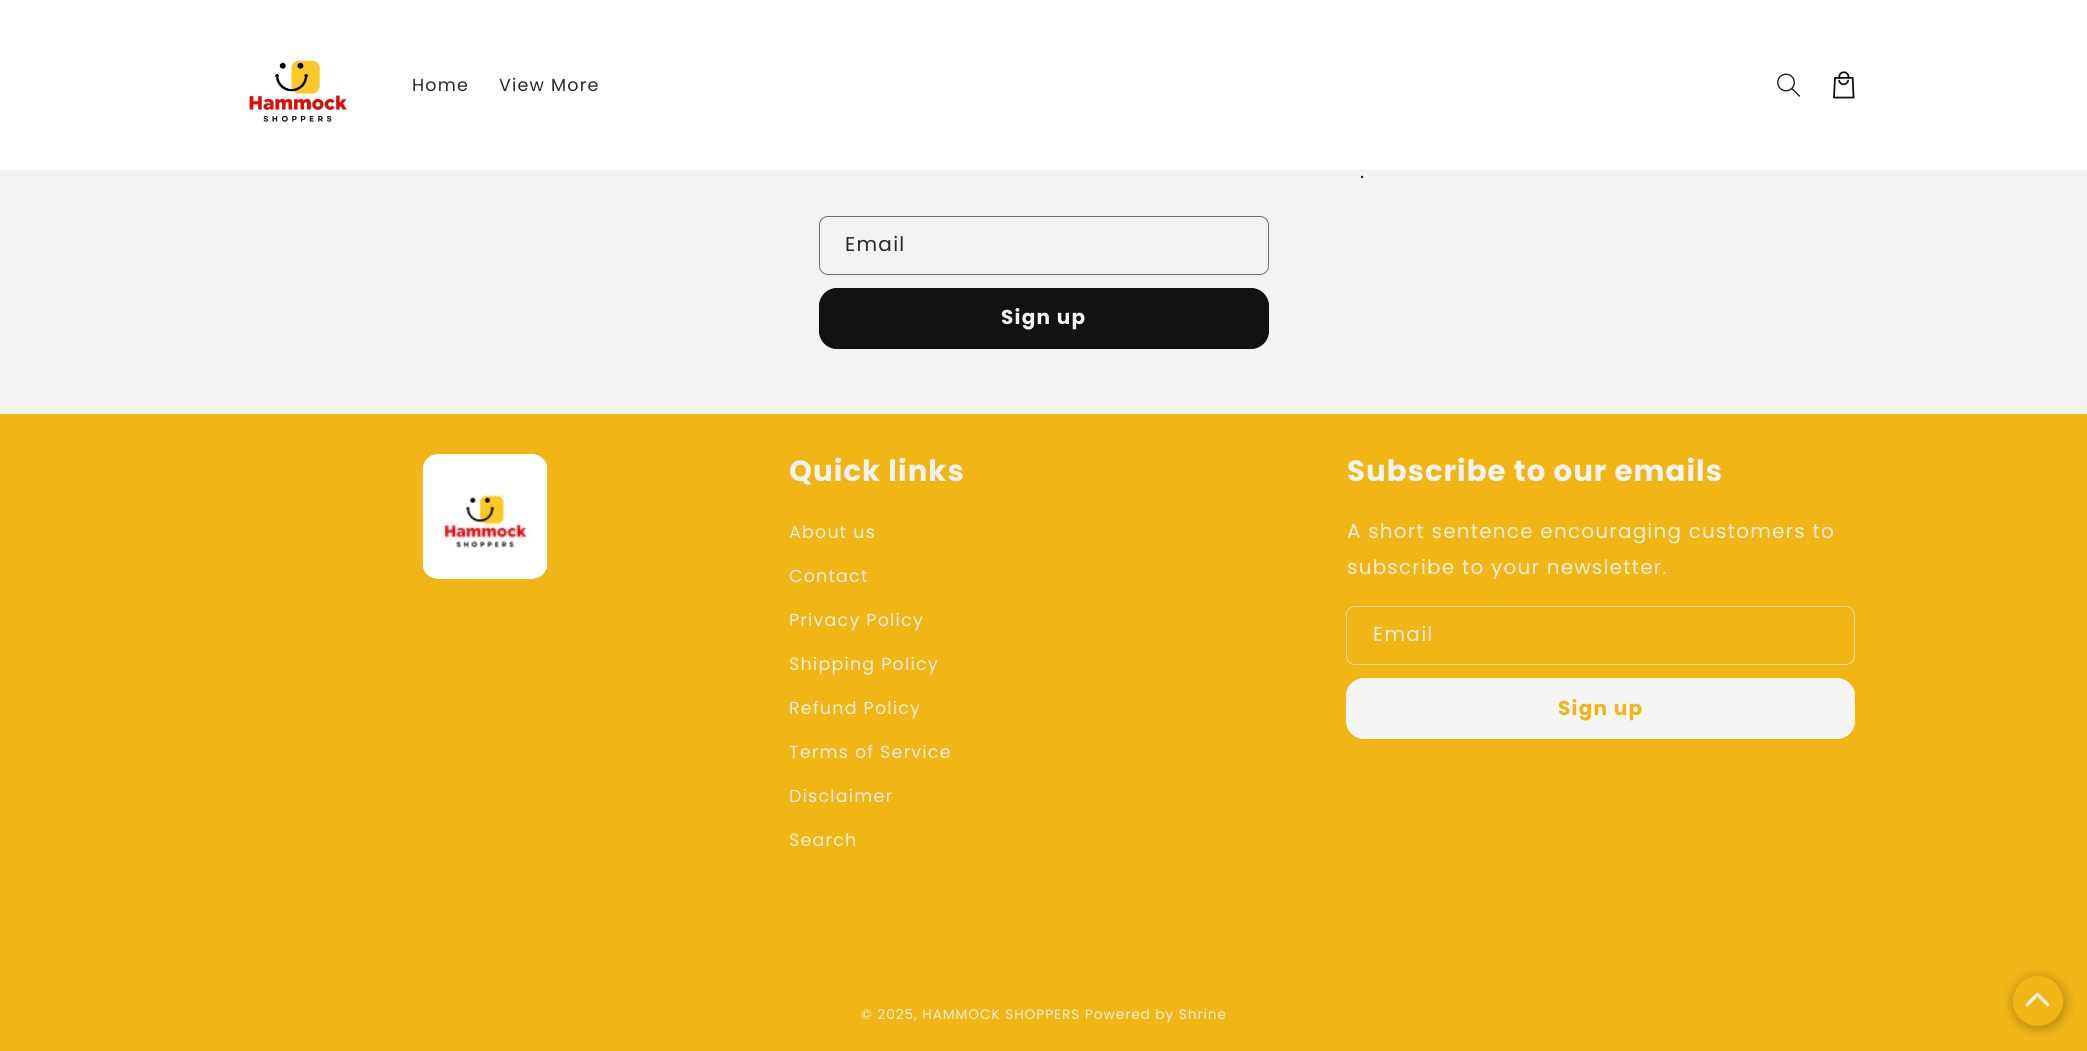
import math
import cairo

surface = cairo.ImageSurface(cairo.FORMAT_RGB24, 2087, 1051)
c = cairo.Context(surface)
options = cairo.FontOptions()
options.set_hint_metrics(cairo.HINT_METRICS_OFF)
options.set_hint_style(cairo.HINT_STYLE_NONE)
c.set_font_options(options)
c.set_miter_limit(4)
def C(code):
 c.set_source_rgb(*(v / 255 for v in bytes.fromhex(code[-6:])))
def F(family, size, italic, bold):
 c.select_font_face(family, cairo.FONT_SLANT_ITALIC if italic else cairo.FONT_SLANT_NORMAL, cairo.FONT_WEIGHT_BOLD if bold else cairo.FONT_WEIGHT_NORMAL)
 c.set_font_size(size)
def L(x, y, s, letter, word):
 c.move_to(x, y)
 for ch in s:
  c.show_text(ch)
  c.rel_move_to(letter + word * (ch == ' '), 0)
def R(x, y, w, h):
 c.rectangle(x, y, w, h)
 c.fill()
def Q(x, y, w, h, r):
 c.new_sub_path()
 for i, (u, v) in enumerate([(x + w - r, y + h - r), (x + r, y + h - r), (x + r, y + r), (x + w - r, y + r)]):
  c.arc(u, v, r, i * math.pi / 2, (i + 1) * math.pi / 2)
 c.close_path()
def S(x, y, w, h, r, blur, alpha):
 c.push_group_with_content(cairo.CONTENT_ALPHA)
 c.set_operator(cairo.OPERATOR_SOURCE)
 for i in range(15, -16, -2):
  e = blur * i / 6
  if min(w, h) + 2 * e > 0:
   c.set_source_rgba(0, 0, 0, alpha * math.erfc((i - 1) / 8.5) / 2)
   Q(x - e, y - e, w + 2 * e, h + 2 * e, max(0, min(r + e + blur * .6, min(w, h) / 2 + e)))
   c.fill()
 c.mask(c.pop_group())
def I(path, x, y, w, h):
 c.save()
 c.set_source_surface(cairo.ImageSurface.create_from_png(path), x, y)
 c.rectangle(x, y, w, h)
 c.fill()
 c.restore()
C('f1b516')
c.paint()
C('ffffff')
R(0,0,2087,170)
I('1.png',249,60,98,62)
F('Poppins',17.5,0,0)
C('292929')
L(412,91,'Home',1.2,0)
L(499,91,'View More',1.2,0)
I('2.png',1777,73,23,24)
I('3.png',1833,71,22,28)
C('f3f3f3')
R(0,170,2087,244)
F('Poppins',20,0,0)
C('292929')
L(1360,178,'.',1.2,0)
Q(819.5,216.5,449,58,8.5)
C('6c6c6c')
c.set_line_width(1)
c.stroke()
C('292929')
L(845,251,'Email',1.25,0)
Q(820.5,289.5,447,58,18.5)
C('121212')
c.set_line_width(3)
c.stroke()
Q(819,288,450,61,18)
c.fill()
F('Poppins',20,0,1)
C('f3f3f3')
L(1001,324,'Sign up',1.25,0)
I('4.png',422,454,126,125)
F('Poppins',29.25,0,1)
L(789,481,'Quick links',1,0)
F('Poppins',17.5,0,0)
C('f5efdf')
L(789,538,'About us',1.2,0)
L(789,582,'Contact',1.2,0)
L(789,626,'Privacy Policy',1.2,0)
L(789,670,'Shipping Policy',1.2,0)
L(789,714,'Refund Policy',1.2,0)
L(789,758,'Terms of Service',1.2,0)
L(789,802,'Disclaimer',1.2,0)
L(789,846,'Search',1.2,0)
F('Poppins',29.25,0,1)
C('f3f3f3')
L(1347,481,'Subscribe to our emails',1,0)
F('Poppins',20,0,0)
C('f5efdf')
L(1347,538,'A short sentence encouraging customers to',1.2,0)
L(1347,574,'subscribe to your newsletter.',1.2,0)
Q(1346.5,606.5,508,58,8.5)
C('f3db9c')
c.set_line_width(1)
c.stroke()
C('f5efdf')
L(1373,641,'Email',1.25,0)
Q(1347.5,679.5,506,58,18.5)
C('f5f5f5')
c.set_line_width(3)
c.stroke()
Q(1346,678,509,61,18)
c.fill()
F('Poppins',20,0,1)
C('f1b516')
L(1558,715,'Sign up',1.25,0)
C('f1ba28')
R(0,925,2087,1)
F('Poppins',13.75,0,0)
C('f5efdf')
L(861,1019,'© 2025, HAMMOCK SHOPPERS',.9,0)
L(1085,1019,'Powered by Shrine',.9,0)
C('000000')
S(2014,978,50,50,25,6,.3)
C('f1b516')
c.arc(2038,1001,25,0,2 * math.pi)
c.fill()
I('5.png',2025,992,25,15)
surface.write_to_png('o.png')
